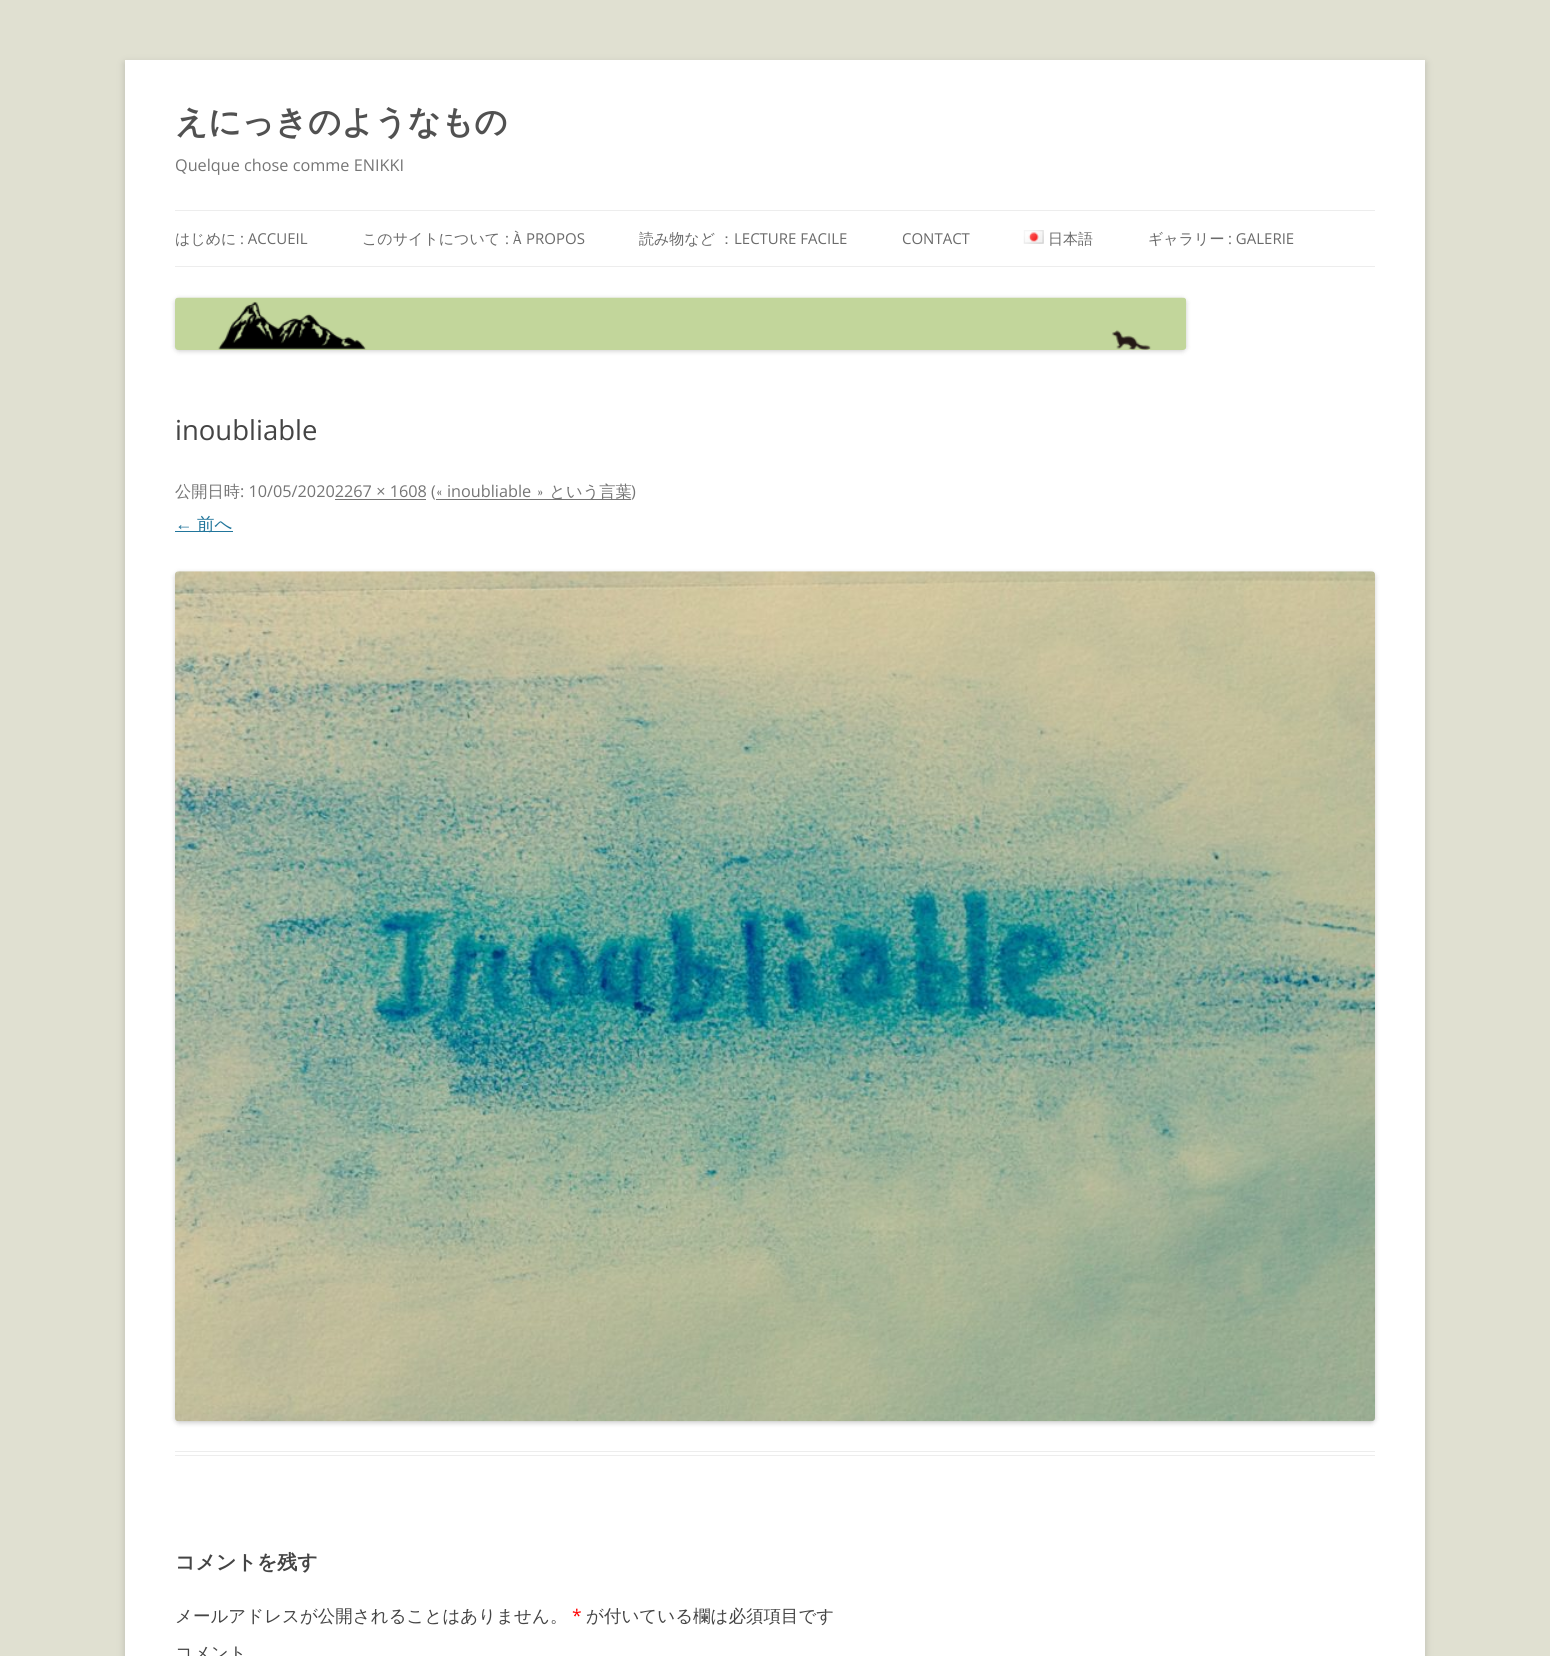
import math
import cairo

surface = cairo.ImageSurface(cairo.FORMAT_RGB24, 1550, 1656)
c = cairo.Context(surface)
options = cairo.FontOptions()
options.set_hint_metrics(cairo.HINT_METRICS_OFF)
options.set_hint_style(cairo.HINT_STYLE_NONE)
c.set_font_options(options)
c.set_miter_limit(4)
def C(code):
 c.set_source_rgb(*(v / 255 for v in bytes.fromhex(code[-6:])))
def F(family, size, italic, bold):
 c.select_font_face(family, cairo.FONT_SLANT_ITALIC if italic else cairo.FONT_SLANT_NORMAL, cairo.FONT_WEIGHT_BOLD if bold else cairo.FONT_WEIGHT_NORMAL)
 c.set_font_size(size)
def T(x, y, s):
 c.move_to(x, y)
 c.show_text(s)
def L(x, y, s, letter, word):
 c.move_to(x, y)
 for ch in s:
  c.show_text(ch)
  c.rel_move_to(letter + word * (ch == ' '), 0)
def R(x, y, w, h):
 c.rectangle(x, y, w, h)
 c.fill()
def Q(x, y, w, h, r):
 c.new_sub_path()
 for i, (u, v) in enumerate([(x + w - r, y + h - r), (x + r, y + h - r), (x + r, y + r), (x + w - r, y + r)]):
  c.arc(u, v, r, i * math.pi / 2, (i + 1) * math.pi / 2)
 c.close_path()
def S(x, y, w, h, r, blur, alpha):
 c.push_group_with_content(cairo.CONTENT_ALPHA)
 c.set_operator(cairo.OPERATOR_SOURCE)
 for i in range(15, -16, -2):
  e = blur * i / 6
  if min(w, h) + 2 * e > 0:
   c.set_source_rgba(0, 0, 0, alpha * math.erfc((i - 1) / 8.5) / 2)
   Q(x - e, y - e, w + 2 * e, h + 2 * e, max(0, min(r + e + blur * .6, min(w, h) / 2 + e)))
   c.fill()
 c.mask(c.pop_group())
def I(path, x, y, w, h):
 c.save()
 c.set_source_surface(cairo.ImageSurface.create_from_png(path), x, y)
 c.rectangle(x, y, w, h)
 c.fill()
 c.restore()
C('e0e0d1')
c.paint()
C('646464')
S(125,63,1300,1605,0,4,.3)
C('ffffff')
R(125,60,1300,1596)
F('WenQuanYi Zen Hei',32.5,0,1)
C('515151')
T(175,133,'えにっきのようなもの')
F('Open Sans',16.25,0,0)
C('757575')
T(175,171,'Quelque chose comme ENIKKI')
C('ededed')
R(175,210,1200,1)
R(175,266,1200,1)
F('WenQuanYi Zen Hei Medium',15,0,0)
C('6a6a6a')
T(175,244,'はじめに')
F('Open Sans',15,0,0)
T(240,244,': ACCUEIL')
F('WenQuanYi Zen Hei Medium',15,0,0)
T(362,244,'このサイトについて')
F('Open Sans',15,0,0)
T(505,244,':')
F('WenQuanYi Zen Hei Medium',15,0,0)
T(513,244,'À')
F('Open Sans',15,0,0)
T(526,244,'PROPOS')
F('WenQuanYi Zen Hei Medium',15,0,0)
T(639,244,'読み物など')
T(719,244,'：')
F('Open Sans',15,0,0)
T(734,244,'LECTURE FACILE')
T(902,244,'CONTACT')
I('1.png',1023,230,21,14)
F('WenQuanYi Zen Hei Medium',15,0,0)
T(1048,244,'日本語')
T(1148,244,'ギャラリー')
F('Open Sans',15,0,0)
T(1228,244,': GALERIE')
C('000000')
S(175,299,1011,52,4,2.5,.2)
I('2.png',175,297,1012,53)
C('ededed')
R(175,1451,1200,1)
R(175,1455,1200,1)
F('Open Sans',27.5,0,0)
C('444444')
T(175,440,'inoubliable')
F('WenQuanYi Zen Hei Medium',16.25,0,0)
C('757575')
T(175,497,'公開日時')
F('Open Sans',16.25,0,0)
T(240,497,': 10/05/20202267 × 1608 (')
F('WenQuanYi Zen Hei Medium',16.25,0,0)
T(436,497,'«')
R(436,499,195,1)
F('Open Sans',16.25,0,0)
T(447,497,'inoubliable')
F('WenQuanYi Zen Hei Medium',16.25,0,0)
L(537,497,'» という言葉',0,1)
F('Open Sans',16.25,0,0)
T(631,497,')')
R(335,499,91,1)
F('Liberation Sans',17.5,0,0)
C('21759b')
T(175,530,'←')
R(175,531,58,1)
F('WenQuanYi Zen Hei Medium',17.5,0,0)
T(197,530,'前へ')
C('000000')
S(175,573,1200,850,4,2.5,.2)
I('3.png',175,571,1200,851)
F('WenQuanYi Zen Hei',20,0,1)
C('444444')
T(175,1569,'コメントを残す')
F('WenQuanYi Zen Hei Medium',17.5,0,0)
T(175,1622,'メールアドレスが公開されることはありません。')
F('Open Sans',17.5,0,0)
C('ff0000')
T(572,1622,'*')
F('WenQuanYi Zen Hei Medium',17.5,0,0)
C('444444')
T(586,1622,'が付いている欄は必須項目です')
T(175,1659,'コメント')
surface.write_to_png('o.png')
